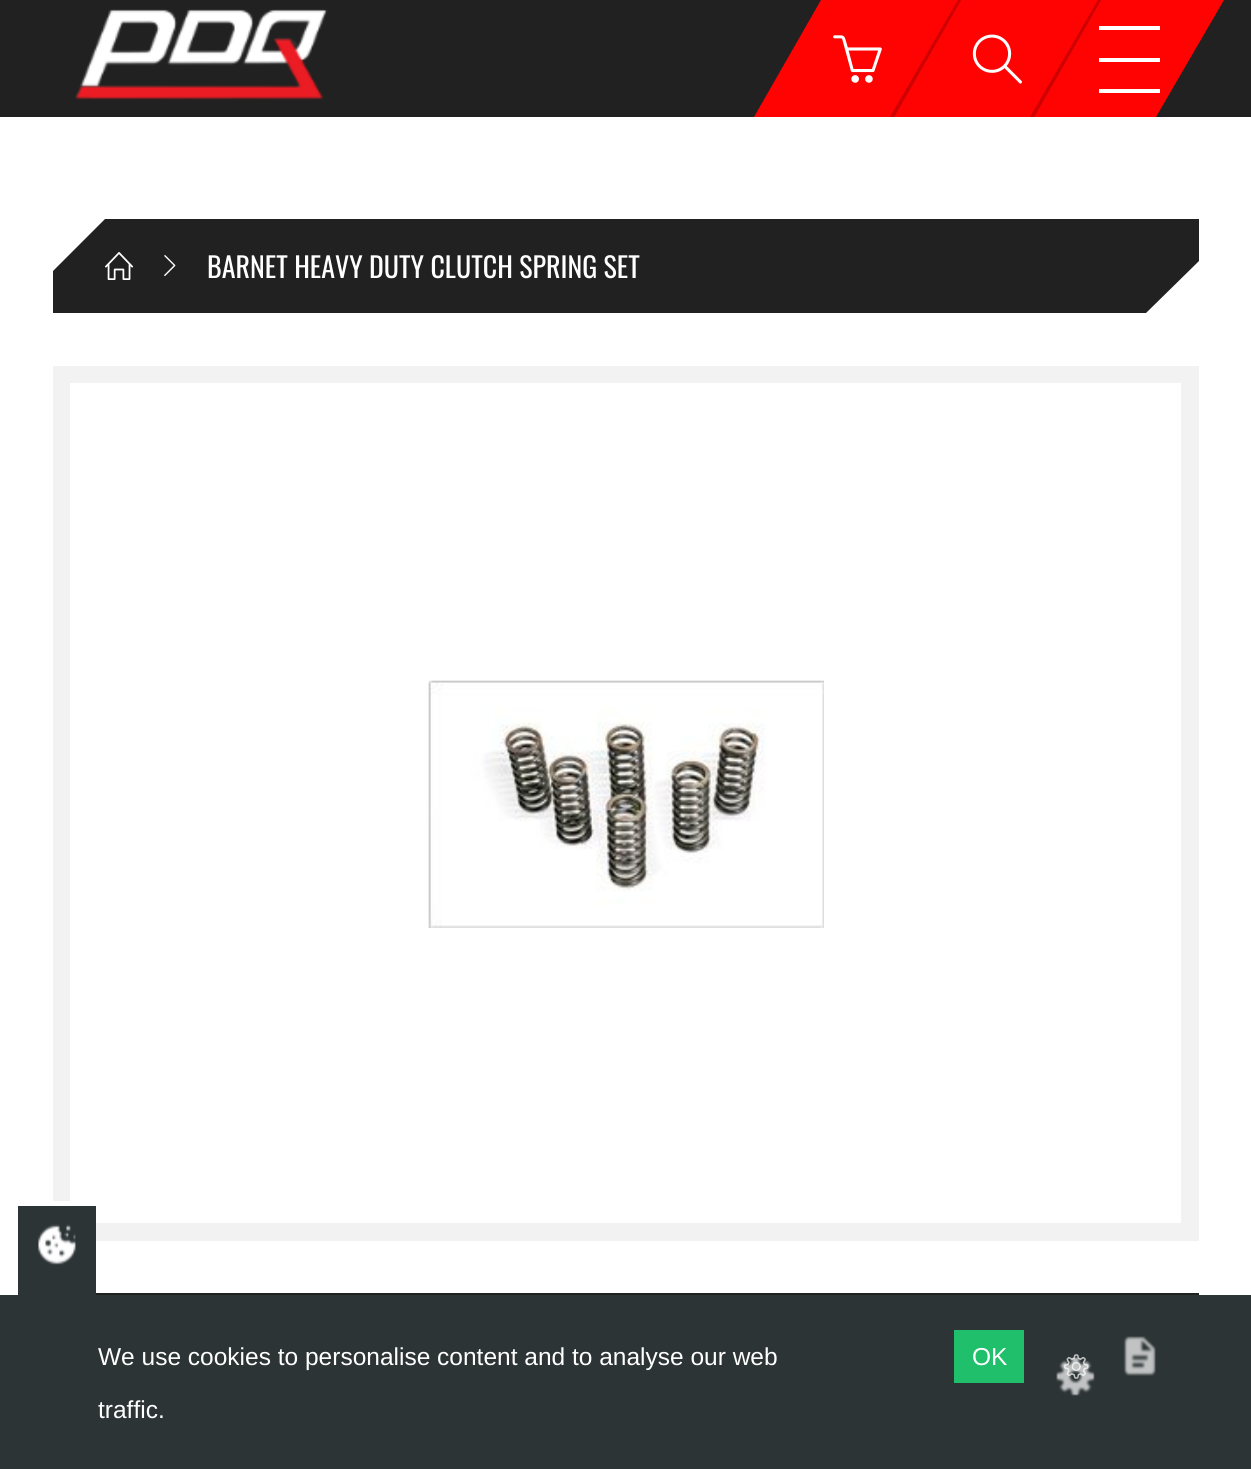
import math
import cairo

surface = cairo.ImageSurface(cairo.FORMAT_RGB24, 1251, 1469)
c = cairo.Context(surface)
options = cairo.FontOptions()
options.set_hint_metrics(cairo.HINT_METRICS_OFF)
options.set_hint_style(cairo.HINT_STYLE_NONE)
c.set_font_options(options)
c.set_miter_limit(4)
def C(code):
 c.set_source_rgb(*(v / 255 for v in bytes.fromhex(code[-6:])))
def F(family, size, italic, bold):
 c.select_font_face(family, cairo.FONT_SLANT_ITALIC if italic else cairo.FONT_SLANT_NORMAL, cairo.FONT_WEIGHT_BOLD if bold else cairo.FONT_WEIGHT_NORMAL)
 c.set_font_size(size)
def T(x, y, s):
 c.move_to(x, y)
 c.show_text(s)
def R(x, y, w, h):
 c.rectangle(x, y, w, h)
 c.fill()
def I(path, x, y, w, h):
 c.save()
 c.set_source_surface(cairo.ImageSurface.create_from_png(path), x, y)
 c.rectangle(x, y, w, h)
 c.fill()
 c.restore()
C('ffffff')
c.paint()
C('212121')
R(0,0,1251,117)
I('1.png',75,9,253,91)
C('ff0202')
c.new_path()
c.move_to(821,0)
c.line_to(961,0)
c.line_to(894,117)
c.line_to(754,117)
c.close_path()
c.fill()
C('ce0000')
c.new_path()
c.move_to(958,0)
c.line_to(961,0)
c.line_to(894,117)
c.line_to(890,117)
c.close_path()
c.fill()
I('2.png',833,35,49,48)
C('ff0202')
c.new_path()
c.move_to(961,0)
c.line_to(1101,0)
c.line_to(1034,117)
c.line_to(894,117)
c.close_path()
c.fill()
C('ce0000')
c.new_path()
c.move_to(1098,0)
c.line_to(1101,0)
c.line_to(1034,117)
c.line_to(1030,117)
c.close_path()
c.fill()
I('3.png',972,34,50,50)
C('ff0202')
c.new_path()
c.move_to(1101,0)
c.line_to(1224,0)
c.line_to(1156,117)
c.line_to(1034,117)
c.close_path()
c.fill()
C('ffffff')
R(1099,26,61,4)
R(1099,58,61,4)
R(1099,89,61,4)
C('212121')
c.new_path()
c.move_to(53,271)
c.line_to(105,219)
c.line_to(1199,219)
c.line_to(1199,261)
c.line_to(1146,313)
c.line_to(53,313)
c.close_path()
c.fill()
I('4.png',105,252,28,28)
I('5.png',164,255,12,21)
F('Oswald',28,0,0)
C('ffffff')
T(207,278,'BARNET HEAVY DUTY CLUTCH SPRING SET')
C('f2f2f2')
R(53,366,1146,875)
C('ffffff')
R(70,383,1111,840)
I('6.png',428,680,396,248)
C('212121')
R(96,1293,1103,2)
C('2d3436')
R(0,1295,1251,174)
R(18,1206,78,89)
C('ffffff')
R(53,1201,17,5)
I('7.png',38,1224,38,41)
F('Liberation Sans',24.5,0,0)
T(98,1365,'We use cookies to personalise content and to analyse our web')
T(98,1418,'traffic.')
C('20bf6b')
R(954,1330,70,53)
C('ffffff')
T(972,1365,'OK')
I('8.png',1056,1357,39,39)
I('9.png',1064,1354,25,25)
I('10.png',1123,1336,33,40)
surface.write_to_png('o.png')
